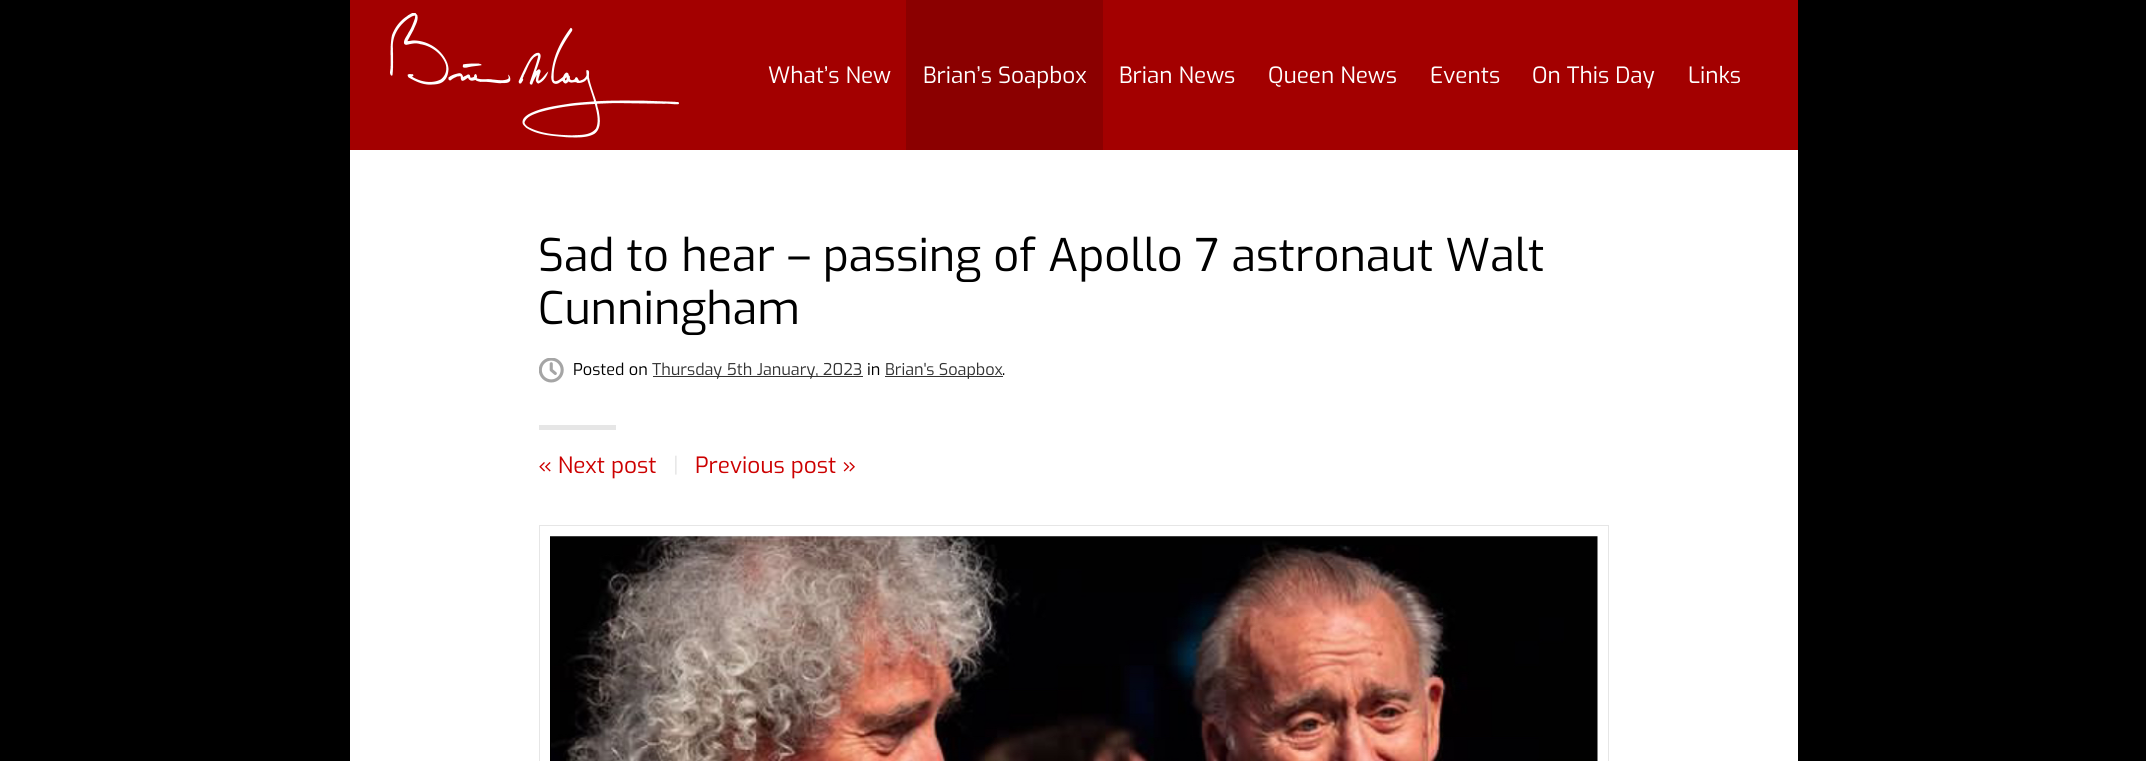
import math
import cairo

surface = cairo.ImageSurface(cairo.FORMAT_RGB24, 2146, 761)
c = cairo.Context(surface)
options = cairo.FontOptions()
options.set_hint_metrics(cairo.HINT_METRICS_OFF)
options.set_hint_style(cairo.HINT_STYLE_NONE)
c.set_font_options(options)
c.set_miter_limit(4)
def C(code):
 c.set_source_rgb(*(v / 255 for v in bytes.fromhex(code[-6:])))
def F(family, size, italic, bold):
 c.select_font_face(family, cairo.FONT_SLANT_ITALIC if italic else cairo.FONT_SLANT_NORMAL, cairo.FONT_WEIGHT_BOLD if bold else cairo.FONT_WEIGHT_NORMAL)
 c.set_font_size(size)
def T(x, y, s):
 c.move_to(x, y)
 c.show_text(s)
def R(x, y, w, h):
 c.rectangle(x, y, w, h)
 c.fill()
def I(path, x, y, w, h):
 c.save()
 c.set_source_surface(cairo.ImageSurface.create_from_png(path), x, y)
 c.rectangle(x, y, w, h)
 c.fill()
 c.restore()
C('000000')
c.paint()
C('a30000')
R(350,0,1448,150)
I('1.png',390,13,289,125)
F('Exo',22.5,0,0)
C('ffffff')
T(768,83,'What’s New')
C('8b0000')
R(906,0,197,150)
C('ffffff')
T(923,83,'Brian’s Soapbox')
T(1119,83,'Brian News')
T(1268,83,'Queen News')
T(1430,83,'Events')
T(1532,83,'On This Day')
T(1688,83,'Links')
R(350,150,1448,611)
F('Exo',45,0,0)
C('000000')
T(538,271,'Sad to hear – passing of Apollo 7 astronaut Walt')
T(538,324,'Cunningham')
I('2.png',539,358,25,25)
F('Exo',16.25,0,0)
T(573,375,'Posted on')
C('333333')
R(653,376,210,1)
T(652,375,'Thursday 5th January, 2023')
C('000000')
T(867,375,'in')
C('333333')
R(885,376,118,1)
T(885,375,'Brian\'s Soapbox')
C('000000')
T(1002,375,'.')
C('e6e6e6')
R(539,425,77,5)
F('Exo',22.5,0,0)
C('cc0000')
T(538,473,'« Next post')
C('e6e6e6')
T(673,473,'|')
C('cc0000')
T(695,473,'Previous post »')
c.rectangle(539.5,525.5,1069,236)
C('e6e6e6')
c.set_line_width(1)
c.stroke()
I('3.png',550,536,1048,225)
surface.write_to_png('o.png')
